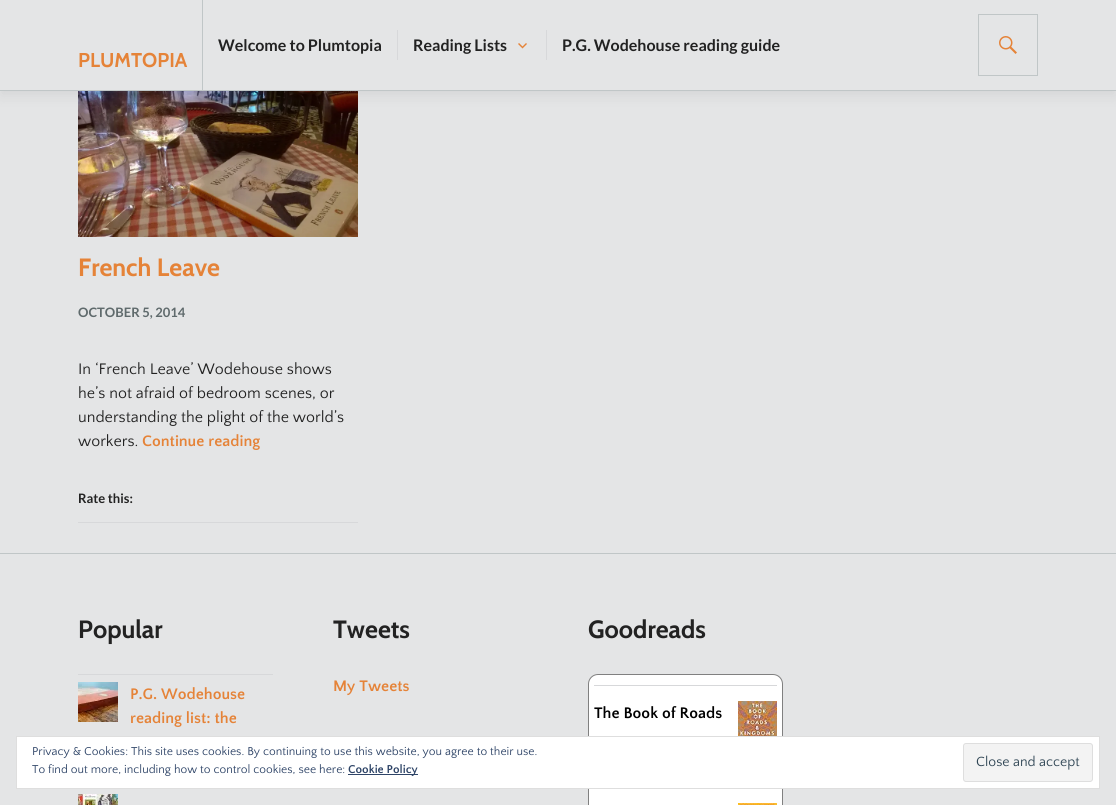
import math
import cairo

surface = cairo.ImageSurface(cairo.FORMAT_RGB24, 1116, 805)
c = cairo.Context(surface)
options = cairo.FontOptions()
options.set_hint_metrics(cairo.HINT_METRICS_OFF)
options.set_hint_style(cairo.HINT_STYLE_NONE)
c.set_font_options(options)
c.set_miter_limit(4)
def C(code):
 c.set_source_rgb(*(v / 255 for v in bytes.fromhex(code[-6:])))
def F(family, size, italic, bold):
 c.select_font_face(family, cairo.FONT_SLANT_ITALIC if italic else cairo.FONT_SLANT_NORMAL, cairo.FONT_WEIGHT_BOLD if bold else cairo.FONT_WEIGHT_NORMAL)
 c.set_font_size(size)
def T(x, y, s):
 c.move_to(x, y)
 c.show_text(s)
def R(x, y, w, h):
 c.rectangle(x, y, w, h)
 c.fill()
def Q(x, y, w, h, r):
 c.new_sub_path()
 for i, (u, v) in enumerate([(x + w - r, y + h - r), (x + r, y + h - r), (x + r, y + r), (x + w - r, y + r)]):
  c.arc(u, v, r, i * math.pi / 2, (i + 1) * math.pi / 2)
 c.close_path()
def S(x, y, w, h, r, blur, alpha):
 c.push_group_with_content(cairo.CONTENT_ALPHA)
 c.set_operator(cairo.OPERATOR_SOURCE)
 for i in range(15, -16, -2):
  e = blur * i / 6
  if min(w, h) + 2 * e > 0:
   c.set_source_rgba(0, 0, 0, alpha * math.erfc((i - 1) / 8.5) / 2)
   Q(x - e, y - e, w + 2 * e, h + 2 * e, max(0, min(r + e + blur * .6, min(w, h) / 2 + e)))
   c.fill()
 c.mask(c.pop_group())
def I(path, x, y, w, h):
 c.save()
 c.set_source_surface(cairo.ImageSurface.create_from_png(path), x, y)
 c.rectangle(x, y, w, h)
 c.fill()
 c.restore()
C('e4e5e6')
c.paint()
I('3.png',78,91,280,146)
C('000000')
S(0,5,1116,91,0,7.5,.07)
C('e4e5e6')
R(0,0,1116,90)
C('c0c6c7')
R(0,90,1116,1)
F('Lato',16,0,1)
C('222222')
T(218,51,'Welcome to Plumtopia')
C('d7d8da')
R(397,30,1,30)
C('222222')
T(413,51,'Reading Lists')
I('1.png',518,43,9,6)
C('d7d8da')
R(546,30,1,30)
C('222222')
T(562,51,'P.G. Wodehouse reading guide')
c.rectangle(978.5,14.5,59,61)
C('c0c6c7')
c.set_line_width(1)
c.stroke()
I('2.png',999,36,18,18)
F('Cabin',20,0,1)
C('e58338')
T(78,67,'PLUMTOPIA')
C('c0c6c7')
R(202,0,1,90)
F('Cabin',25,0,1)
C('e58338')
T(78,276,'French Leave')
F('Lato',13,0,1)
C('5f6a6c')
T(78,317,'OCTOBER 5, 2014')
F('Quattrocento Sans',16,0,0)
C('222222')
T(78,374,'In ‘French Leave’ Wodehouse shows')
T(78,398,'he’s not afraid of bedroom scenes, or')
T(78,422,'understanding the plight of the world’s')
T(78,446,'workers.')
F('Quattrocento Sans',16,0,1)
C('e58338')
T(142,446,'Continue reading')
C('d7d8da')
R(78,522,280,1)
F('Lato',13,0,1)
C('222222')
T(78,503,'Rate this:')
C('c0c6c7')
R(0,553,1116,1)
F('Cabin',25,0,1)
C('222222')
T(78,638,'Popular')
C('d7d8da')
R(78,674,195,1)
I('4.png',78,682,40,40)
F('Quattrocento Sans',16,0,1)
C('e58338')
T(130,699,'P.G. Wodehouse')
T(130,723,'reading list: the')
I('5.png',78,794,40,11)
F('Cabin',25,0,1)
C('222222')
T(333,638,'Tweets')
F('Quattrocento Sans',16,0,1)
C('e58338')
T(333,691,'My Tweets')
F('Cabin',25,0,1)
C('222222')
T(588,638,'Goodreads')
C('ffffff')
Q(588.5,674.5,194,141,9.5)
c.fill_preserve()
C('808080')
c.stroke()
C('d7d8da')
R(594,685,183,1)
F('Quattrocento Sans',16,0,1)
C('000000')
T(594,718,'The Book of Roads')
I('6.png',738,701,39,35)
I('7.png',738,803,39,2)
C('ffffff')
c.rectangle(16.5,736.5,1083,52)
c.fill_preserve()
C('dedede')
c.stroke()
F('Quattrocento Sans',12,0,0)
C('2e4467')
T(32,755,'Privacy & Cookies: This site uses cookies. By continuing to use this website, you agree to their use.')
T(32,773,'To find out more, including how to control cookies, see here:')
R(348,774,70,1)
F('Quattrocento Sans',12,0,1)
T(348,773,'Cookie Policy')
C('f3f3f3')
Q(963.5,743.5,129,38,2.5)
c.fill_preserve()
C('dedede')
c.stroke()
F('Quattrocento Sans',14,0,0)
C('2e4453')
T(976,766,'Close and accept')
surface.write_to_png('o.png')
